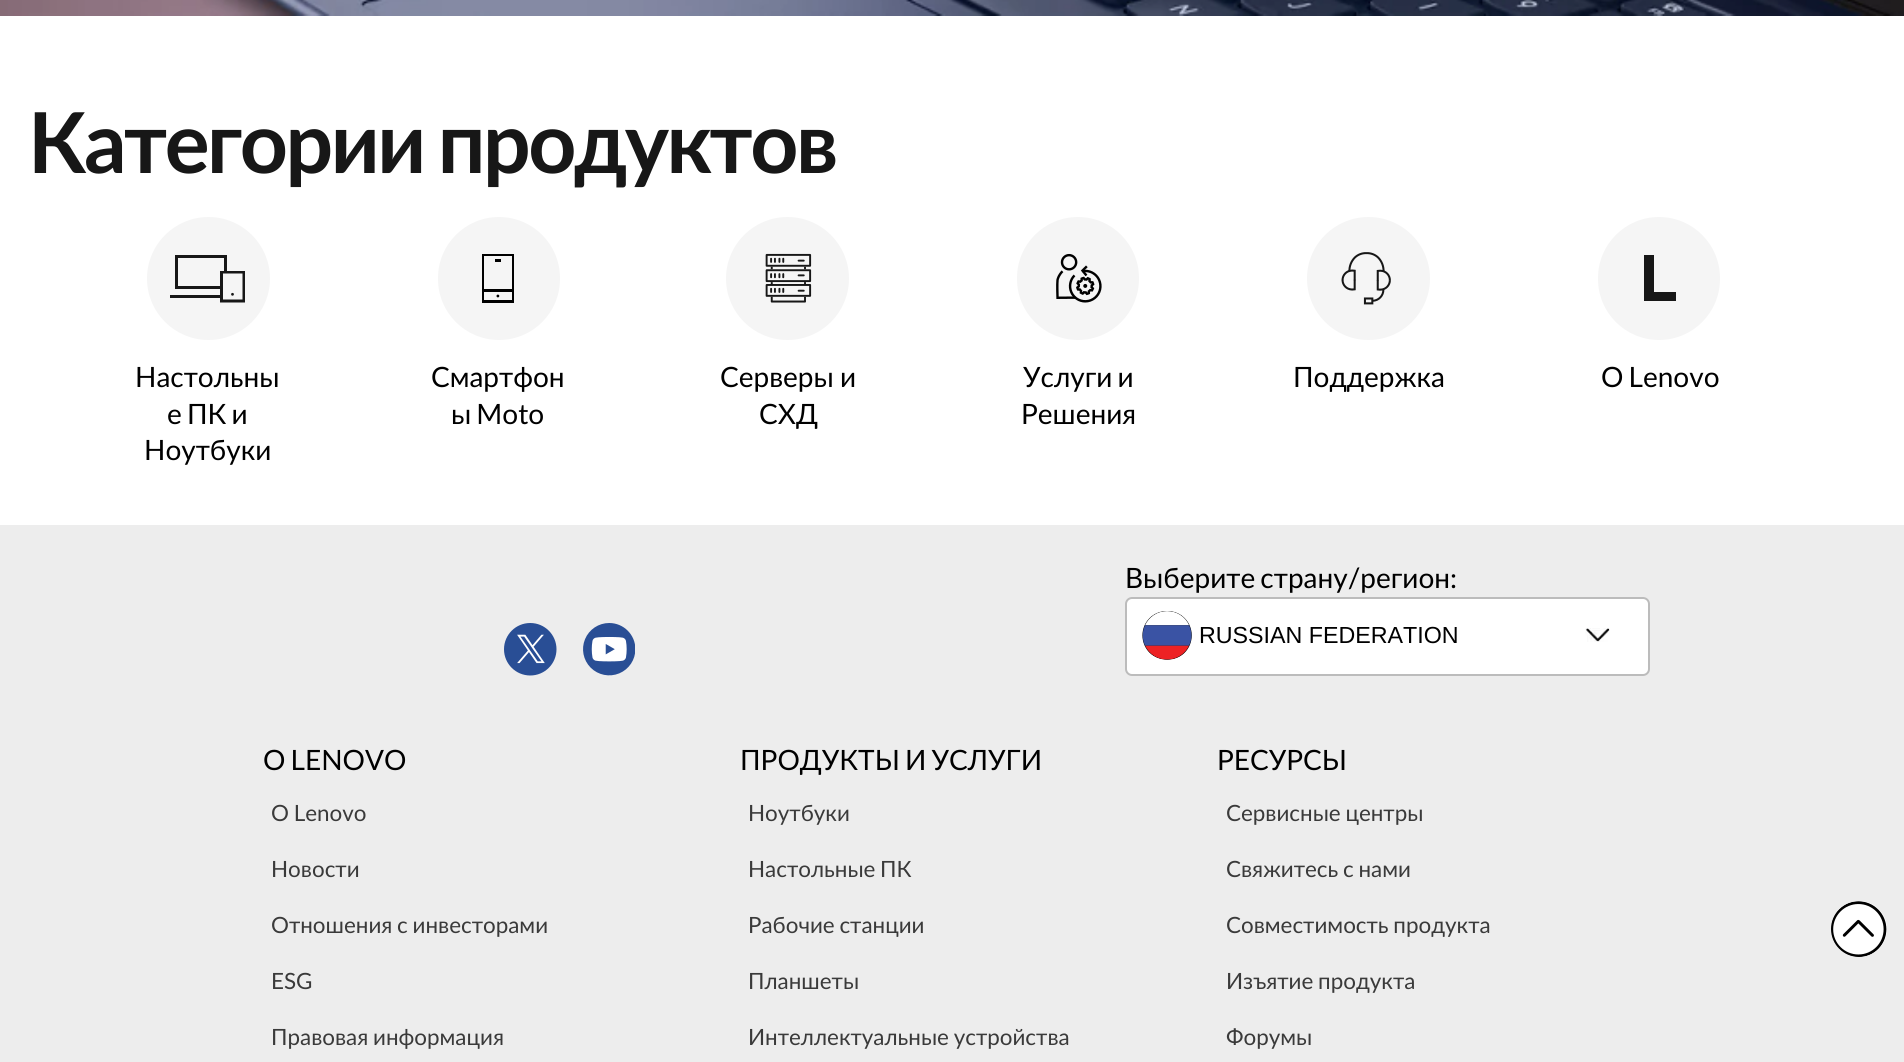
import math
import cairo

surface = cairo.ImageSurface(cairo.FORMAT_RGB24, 1904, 1062)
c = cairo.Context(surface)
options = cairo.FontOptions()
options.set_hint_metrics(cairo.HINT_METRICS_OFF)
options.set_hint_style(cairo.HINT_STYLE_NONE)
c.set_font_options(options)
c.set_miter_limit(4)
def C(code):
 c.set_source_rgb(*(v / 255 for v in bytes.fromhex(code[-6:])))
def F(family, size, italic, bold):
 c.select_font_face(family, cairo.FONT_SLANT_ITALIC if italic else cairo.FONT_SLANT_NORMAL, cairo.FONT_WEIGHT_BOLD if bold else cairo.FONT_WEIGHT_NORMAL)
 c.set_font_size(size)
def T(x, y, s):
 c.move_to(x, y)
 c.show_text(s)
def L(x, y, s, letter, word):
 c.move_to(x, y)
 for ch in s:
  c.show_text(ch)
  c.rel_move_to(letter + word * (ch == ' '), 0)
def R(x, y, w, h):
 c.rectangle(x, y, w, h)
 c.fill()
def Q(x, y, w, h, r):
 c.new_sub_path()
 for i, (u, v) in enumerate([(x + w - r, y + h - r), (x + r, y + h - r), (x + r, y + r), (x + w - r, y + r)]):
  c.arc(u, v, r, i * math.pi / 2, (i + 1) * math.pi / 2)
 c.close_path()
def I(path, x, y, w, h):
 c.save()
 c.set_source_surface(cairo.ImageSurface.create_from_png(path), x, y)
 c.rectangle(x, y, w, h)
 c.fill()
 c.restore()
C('ffffff')
c.paint()
I('1.png',0,0,1904,16)
F('Lato',84,0,1)
C('171717')
L(28,173,'Категории продуктов',-2.5,-4)
C('f5f5f5')
c.new_path()
c.arc(208.5,278.5,61.5,0,2 * math.pi)
c.fill()
C('171717')
c.new_path()
c.move_to(220,289)
c.line_to(175,289)
c.line_to(175,255)
c.line_to(227,255)
c.line_to(227,271)
c.line_to(224,271)
c.line_to(224,258)
c.line_to(178,258)
c.line_to(178,286)
c.line_to(220,286)
c.close_path()
c.fill()
R(170,295,51,3)
c.new_path()
c.move_to(245,302.5)
c.line_to(220,302.5)
c.line_to(220,271)
c.line_to(245,271)
c.close_path()
c.move_to(223,299.5)
c.line_to(242.5,299.5)
c.line_to(242.5,273.5)
c.line_to(223,273.5)
c.close_path()
c.fill()
c.arc(232.5,294.3,1.4,0,2 * math.pi)
c.fill()
F('Lato',28,0,0)
C('000000')
T(135,387,'Настольны')
L(167,424,'е ПК и',0,-2)
T(144,460,'Ноутбуки')
C('f5f5f5')
Q(438,217,122,123,61)
c.fill()
C('000000')
c.new_path()
c.move_to(514,303)
c.line_to(482,303)
c.line_to(482,254)
c.line_to(514,254)
c.close_path()
c.move_to(484,300)
c.line_to(512,300)
c.line_to(512,256)
c.line_to(484,256)
c.close_path()
c.fill()
c.arc(497.9,296,1.4,0,2 * math.pi)
c.fill()
R(483,289,29,3)
R(495,259,6,3)
T(431,387,'Смартфон')
L(451,424,'ы Moto',0,-2)
C('f5f5f5')
c.new_path()
c.arc(787.5,278.5,61.5,0,2 * math.pi)
c.fill()
I('2.png',765,253,47,50)
C('000000')
L(720,387,'Cерверы и',0,-1)
T(759,424,'СХД')
C('f5f5f5')
Q(1017,217,122,123,61)
c.fill()
I('3.png',1056,253,46,50)
C('000000')
L(1023,387,'Услуги и',0,-2)
T(1021,424,'Решения')
C('f5f5f5')
c.new_path()
c.arc(1368.5,278.5,61.5,0,2 * math.pi)
c.fill()
I('4.png',1341,252,50,53)
C('000000')
T(1293,387,'Поддержка')
C('f5f5f5')
Q(1598,217,122,123,61)
c.fill()
C('171717')
c.new_path()
c.move_to(1676,292)
c.line_to(1654,292)
c.line_to(1654,255)
c.line_to(1644,255)
c.line_to(1644,301)
c.line_to(1676,301)
c.close_path()
c.fill()
C('000000')
L(1601,387,'О Lenovo',0,-2)
C('ededed')
R(0,525,1904,537)
C('000000')
L(1125,588,'Выберите страну/регион:',0,-2)
C('ffffff')
Q(1126,598,523,77,6)
c.fill_preserve()
C('bcbcbc')
c.stroke()
I('5.png',1142,611,50,49)
F('Liberation Sans',23.25,0,0)
C('000000')
T(1199,643,'RUSSIAN FEDERATION')
I('6.png',1585,628,25,14)
I('7.png',504,623,53,53)
I('8.png',583,623,52,53)
F('Lato',28,0,0)
L(263,770,'О LENOVO',0,-2)
F('Lato',22.4,0,0)
C('3a3a3a')
L(271,821,'О Lenovo',0,-1)
T(271,877,'Новости')
L(271,933,'Отношения с инвесторами',0,-1)
T(271,989,'ESG')
L(271,1045,'Правовая информация',0,-1)
F('Lato',28,0,0)
C('000000')
L(740,770,'ПРОДУКТЫ И УСЛУГИ',0,-2)
F('Lato',22.4,0,0)
C('3a3a3a')
T(748,821,'Ноутбуки')
L(748,877,'Настольные ПК',0,-1)
L(748,933,'Рабочие станции',0,-1)
T(748,989,'Планшеты')
L(748,1045,'Интеллектуальные устройства',0,-1)
F('Lato',28,0,0)
C('000000')
T(1217,770,'РЕСУРСЫ')
F('Lato',22.4,0,0)
C('3a3a3a')
L(1226,821,'Сервисные центры',0,-1)
L(1226,877,'Свяжитесь с нами',0,-1)
L(1226,933,'Совместимость продукта',0,-1)
L(1226,989,'Изъятие продукта',0,-1)
T(1226,1045,'Форумы')
C('ffffff')
c.new_path()
c.arc(1859,929,28,0,2 * math.pi)
c.fill()
I('9.png',1831,901,56,56)
surface.write_to_png('o.png')
